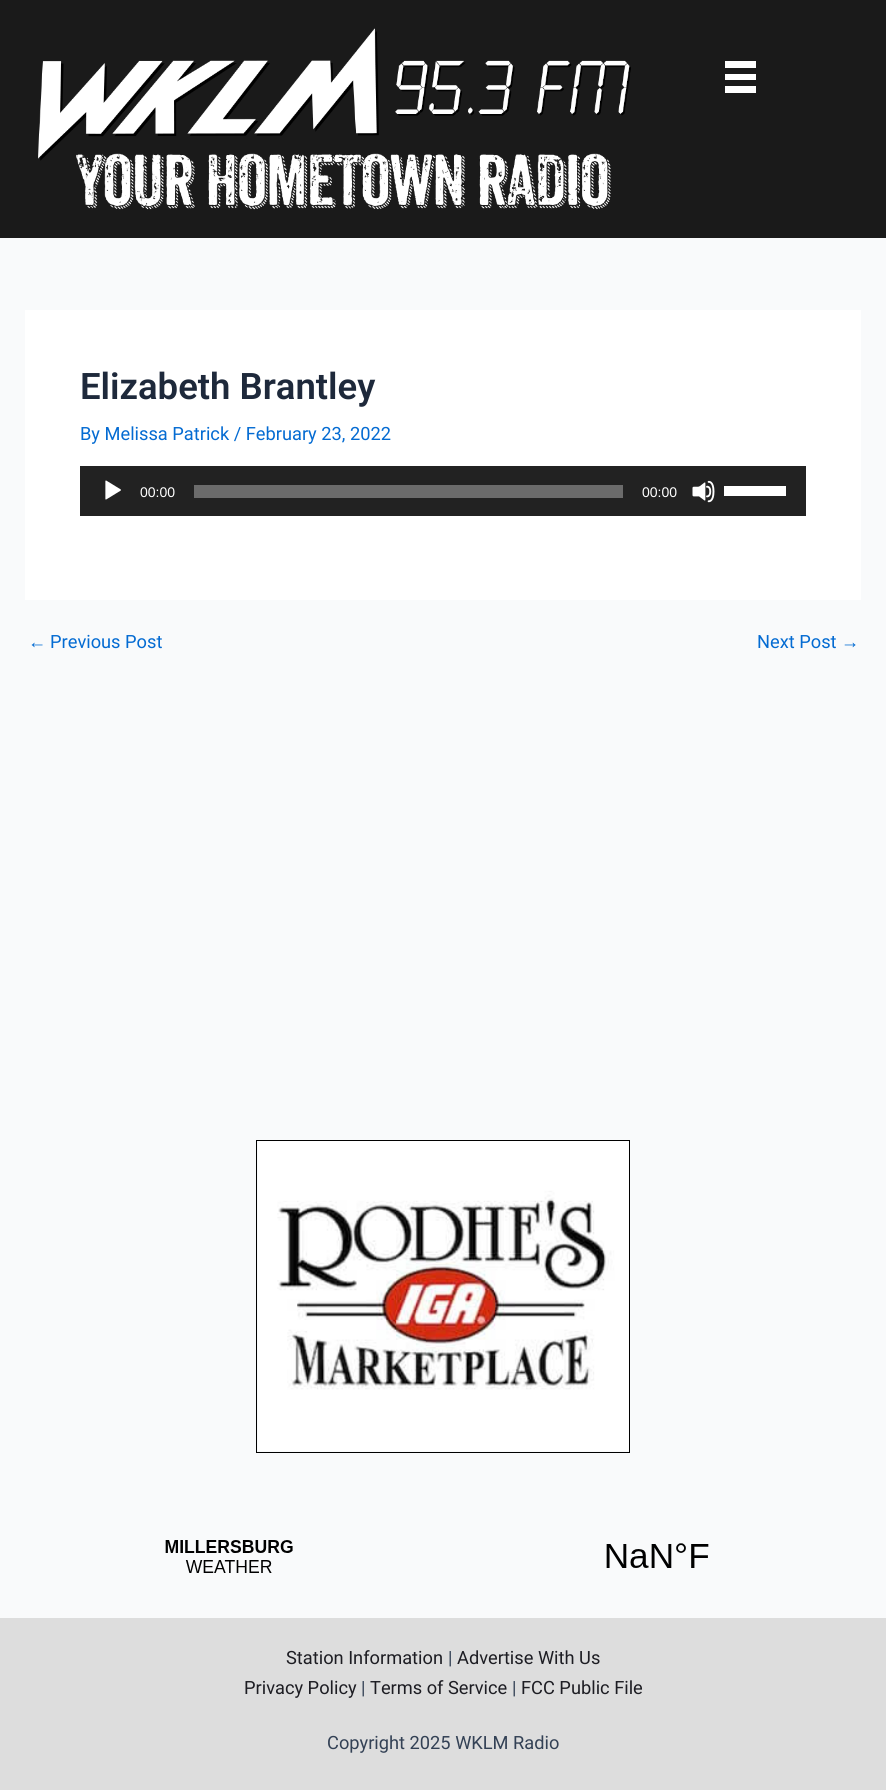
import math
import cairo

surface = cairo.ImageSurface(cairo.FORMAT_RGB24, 886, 1790)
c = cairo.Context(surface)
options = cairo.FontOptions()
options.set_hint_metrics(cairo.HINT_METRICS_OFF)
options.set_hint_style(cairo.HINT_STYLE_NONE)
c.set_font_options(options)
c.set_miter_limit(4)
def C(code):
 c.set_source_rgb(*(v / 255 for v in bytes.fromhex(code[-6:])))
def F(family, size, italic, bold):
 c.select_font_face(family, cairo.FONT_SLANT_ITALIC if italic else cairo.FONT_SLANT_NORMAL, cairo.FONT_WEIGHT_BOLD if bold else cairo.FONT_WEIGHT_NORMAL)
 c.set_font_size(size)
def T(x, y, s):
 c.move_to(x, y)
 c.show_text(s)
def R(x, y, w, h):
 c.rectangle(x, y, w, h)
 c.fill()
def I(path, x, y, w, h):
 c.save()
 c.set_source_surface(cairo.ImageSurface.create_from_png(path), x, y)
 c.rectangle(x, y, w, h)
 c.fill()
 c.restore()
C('f9fafb')
c.paint()
C('1a1a1a')
R(0,0,886,238)
I('1.png',38,28,593,182)
C('ffffff')
R(725,61,31,7)
R(725,74,31,6)
R(725,86,31,7)
R(25,310,836,290)
F('Roboto SemiBold',36.5,0,0)
C('1e293b')
T(80,399,'Elizabeth Brantley')
F('Roboto',18.25,0,0)
C('046bd2')
T(80,440,'By Melissa Patrick / February 23, 2022')
C('222222')
R(80,466,726,50)
I('2.png',105,480,16,20)
F('Liberation Sans',14,0,0)
C('ffffff')
T(140,497,'00:00')
C('6b6b6b')
R(194,485,429,13)
C('ffffff')
T(642,497,'00:00')
I('3.png',692,480,23,23)
R(724,486,62,10)
F('Liberation Sans',18.25,0,0)
C('046bd2')
T(28,648,'←')
F('Roboto',18.25,0,0)
T(50,648,'Previous Post')
T(757,648,'Next Post')
F('Liberation Sans',18.25,0,0)
T(841,648,'→')
c.rectangle(256.5,1140.5,373,312)
C('000000')
c.set_line_width(1)
c.stroke()
I('4.png',258,1141,371,310)
I('5.png',165,1540,544,33)
C('dddddd')
R(0,1618,886,172)
F('Roboto',18.25,0,0)
C('1d1d23')
T(286,1664,'Station Information')
C('334155')
T(448,1664,'|')
C('1d1d23')
T(457,1664,'Advertise With Us')
T(244,1694,'Privacy Policy')
C('334155')
T(361,1694,'|')
C('1d1d23')
T(370,1694,'Terms of Service')
C('334155')
T(512,1694,'|')
C('1d1d23')
T(521,1694,'FCC Public File')
C('334155')
T(327,1749,'Copyright 2025 WKLM Radio')
surface.write_to_png('o.png')
